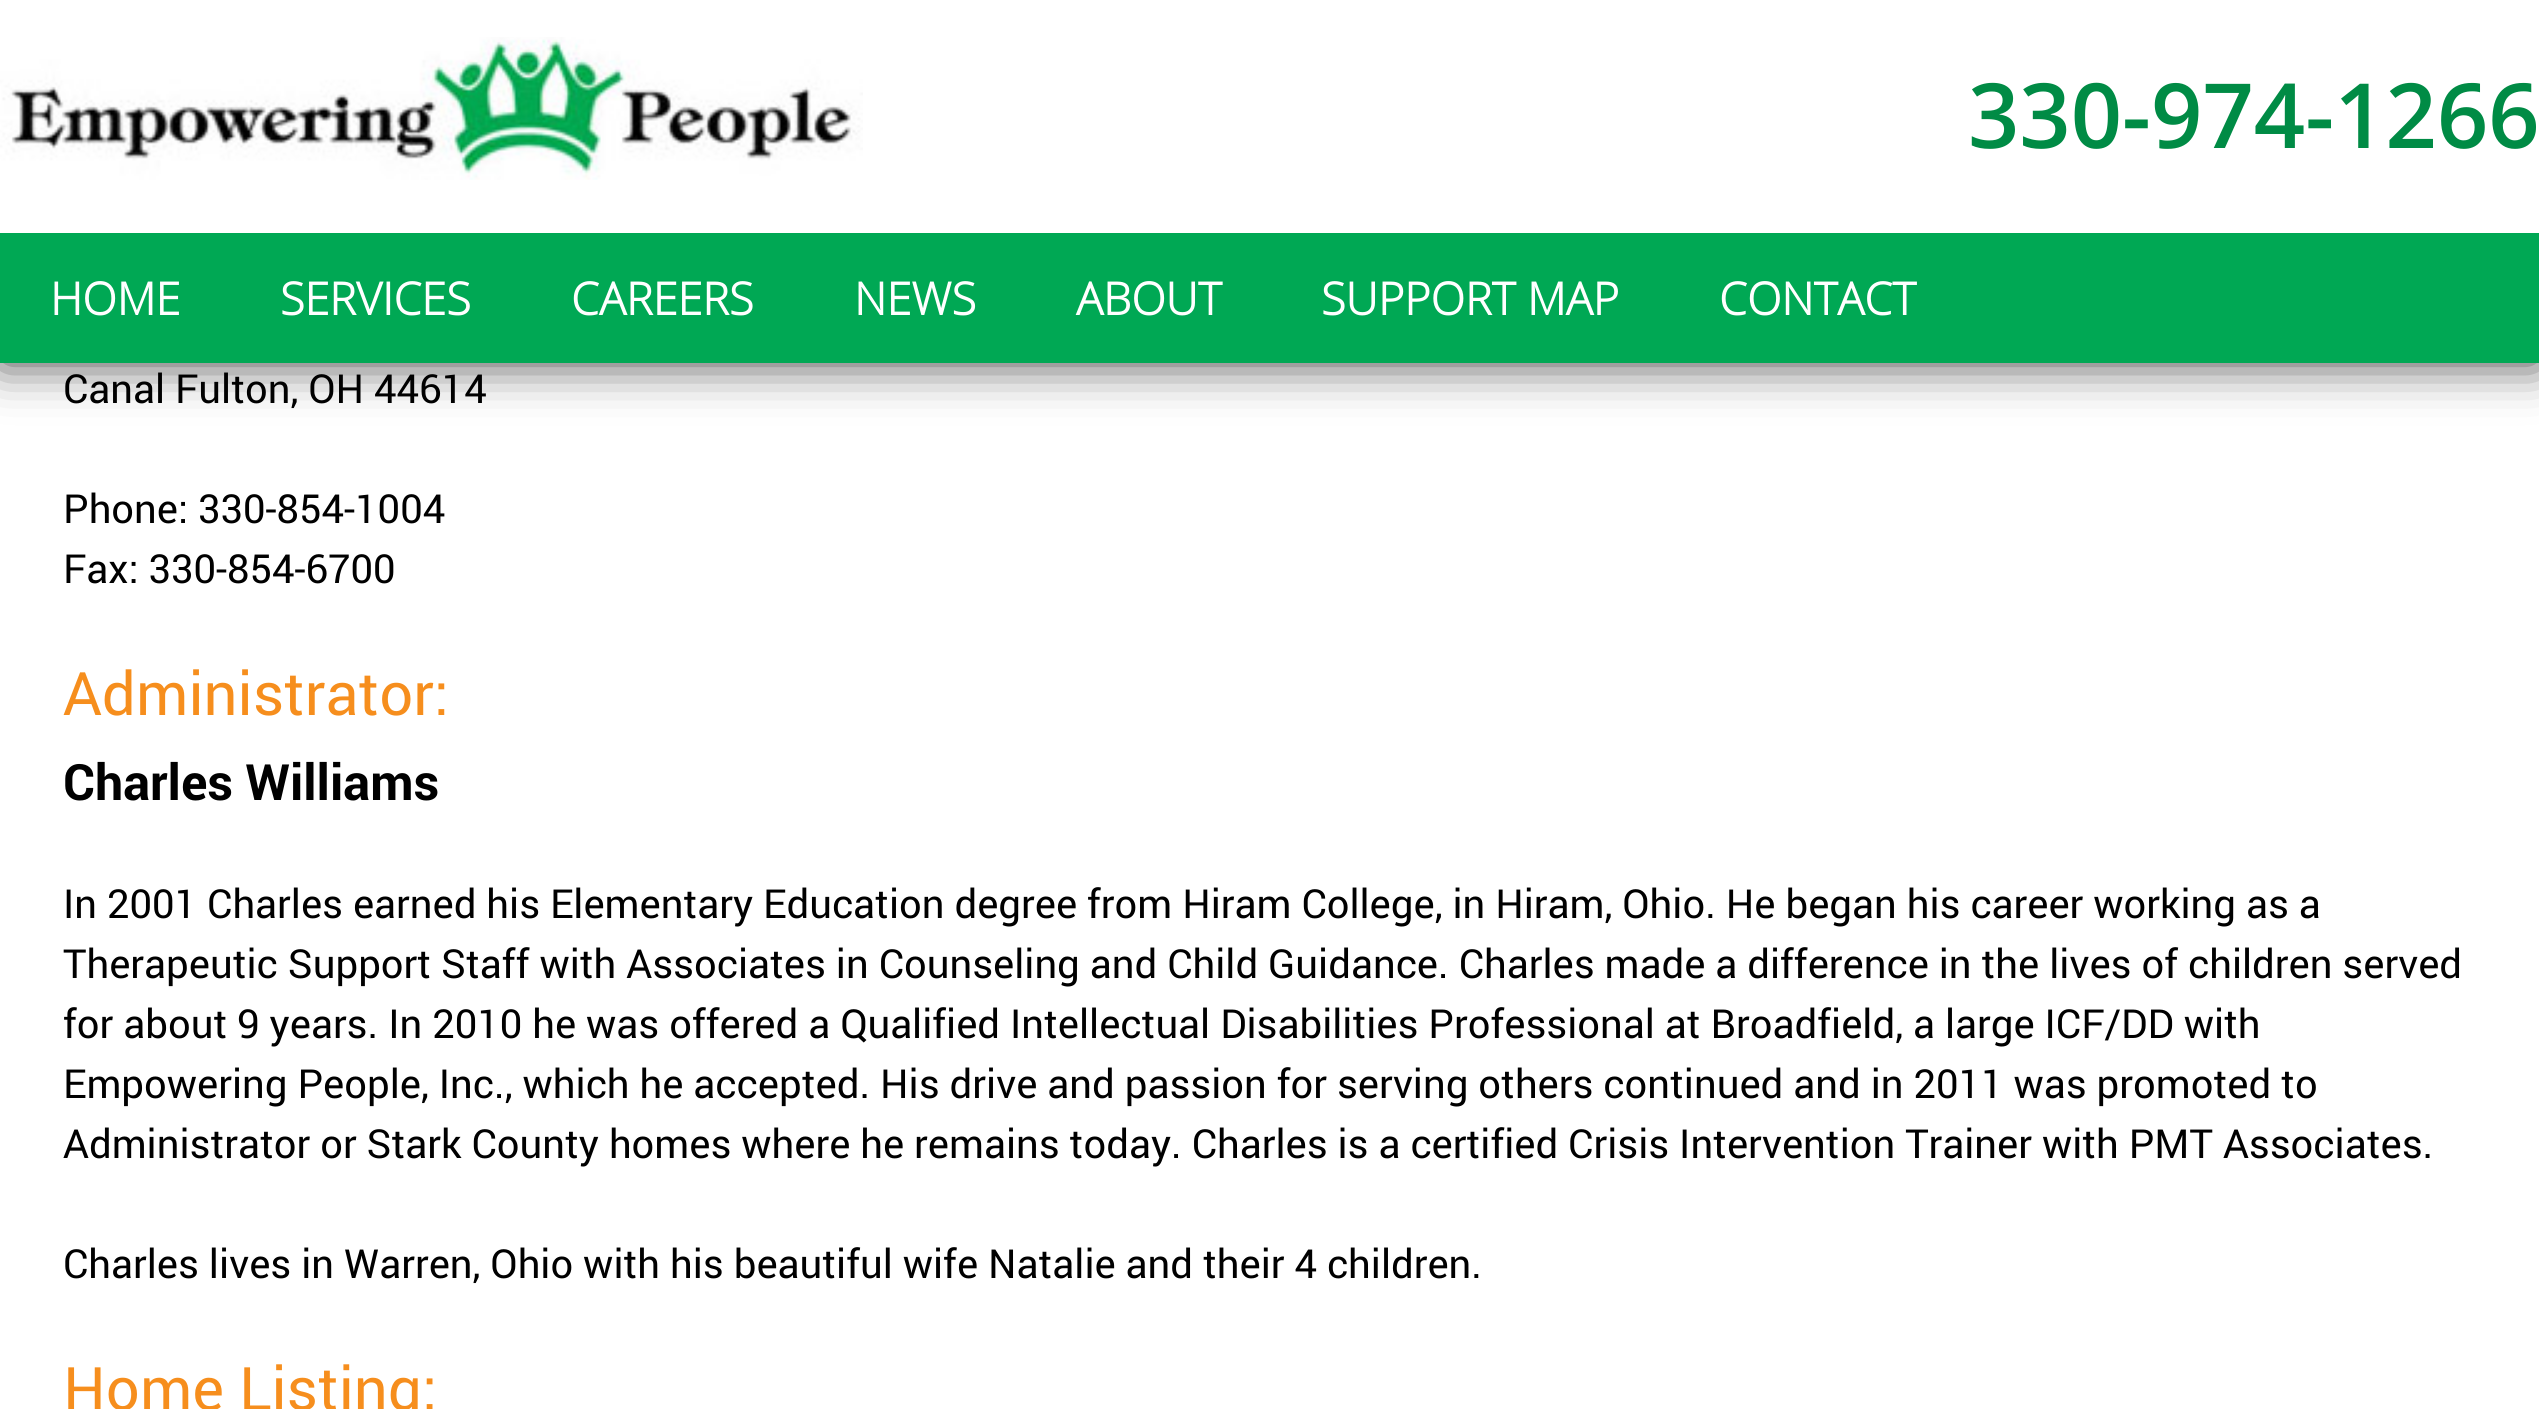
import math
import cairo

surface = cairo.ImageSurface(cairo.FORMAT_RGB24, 2539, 1409)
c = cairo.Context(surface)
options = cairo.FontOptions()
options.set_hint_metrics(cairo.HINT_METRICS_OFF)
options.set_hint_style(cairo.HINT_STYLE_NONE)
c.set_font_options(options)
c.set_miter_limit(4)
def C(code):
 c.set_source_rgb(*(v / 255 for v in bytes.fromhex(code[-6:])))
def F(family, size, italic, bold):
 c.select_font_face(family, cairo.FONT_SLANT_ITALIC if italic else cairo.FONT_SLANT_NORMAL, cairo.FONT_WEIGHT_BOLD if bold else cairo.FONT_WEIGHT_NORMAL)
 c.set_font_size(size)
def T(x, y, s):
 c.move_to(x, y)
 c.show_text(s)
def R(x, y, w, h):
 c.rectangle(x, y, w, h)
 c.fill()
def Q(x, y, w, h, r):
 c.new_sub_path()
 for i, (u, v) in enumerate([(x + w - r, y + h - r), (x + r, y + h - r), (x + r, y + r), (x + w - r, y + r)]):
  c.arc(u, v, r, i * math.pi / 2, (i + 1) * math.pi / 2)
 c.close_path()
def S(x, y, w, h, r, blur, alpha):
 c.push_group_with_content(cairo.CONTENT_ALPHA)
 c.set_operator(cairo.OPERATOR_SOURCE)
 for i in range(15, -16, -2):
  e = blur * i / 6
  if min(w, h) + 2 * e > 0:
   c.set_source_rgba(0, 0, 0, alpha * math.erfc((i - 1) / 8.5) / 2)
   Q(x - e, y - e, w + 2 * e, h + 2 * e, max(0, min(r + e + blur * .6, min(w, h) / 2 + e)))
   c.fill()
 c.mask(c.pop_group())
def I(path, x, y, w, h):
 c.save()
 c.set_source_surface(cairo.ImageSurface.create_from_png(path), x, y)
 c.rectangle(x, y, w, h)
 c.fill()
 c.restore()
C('ffffff')
c.paint()
C('000000')
S(0,0,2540,363,0,25,.75)
C('ffffff')
R(0,0,2539,233)
I('1.png',0,37,863,143)
F('Open Sans SemiBold',90,0,0)
C('008b45')
T(1968,148,'330-974-1266')
C('00a854')
R(0,233,2539,130)
F('Open Sans',45,0,1)
C('ffffff')
T(50,315,'HOME')
T(280,315,'SERVICES')
T(571,315,'CAREERS')
T(854,315,'NEWS')
T(1076,315,'ABOUT')
T(1321,315,'SUPPORT MAP')
T(1719,315,'CONTACT')
F('roboto',40,0,0)
C('000000')
T(63,403,'Canal Fulton, OH 44614')
T(63,523,'Phone: 330-854-1004')
T(63,583,'Fax: 330-854-6700')
F('roboto',60,0,0)
C('f68e1d')
T(63,715,'Administrator:')
F('roboto',50,0,1)
C('000000')
T(63,800,'Charles Williams')
F('roboto',40,0,0)
T(63,918,'In 2001 Charles earned his Elementary Education degree from Hiram College, in Hiram, Ohio. He began his career working as a')
T(63,978,'Therapeutic Support Staff with Associates in Counseling and Child Guidance. Charles made a difference in the lives of children served')
T(63,1038,'for about 9 years. In 2010 he was offered a Qualified Intellectual Disabilities Professional at Broadfield, a large ICF/DD with')
T(63,1098,'Empowering People, Inc., which he accepted. His drive and passion for serving others continued and in 2011 was promoted to')
T(63,1158,'Administrator or Stark County homes where he remains today. Charles is a certified Crisis Intervention Trainer with PMT Associates.')
T(63,1278,'Charles lives in Warren, Ohio with his beautiful wife Natalie and their 4 children.')
F('roboto',60,0,0)
C('f68e1d')
T(63,1410,'Home Listing:')
surface.write_to_png('o.png')
